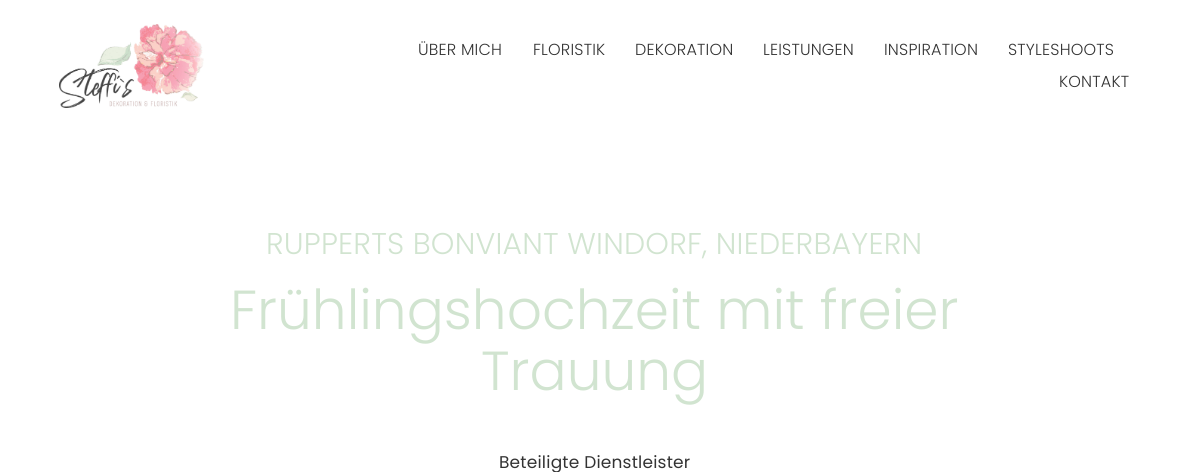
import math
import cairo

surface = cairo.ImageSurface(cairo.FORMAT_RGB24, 1189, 472)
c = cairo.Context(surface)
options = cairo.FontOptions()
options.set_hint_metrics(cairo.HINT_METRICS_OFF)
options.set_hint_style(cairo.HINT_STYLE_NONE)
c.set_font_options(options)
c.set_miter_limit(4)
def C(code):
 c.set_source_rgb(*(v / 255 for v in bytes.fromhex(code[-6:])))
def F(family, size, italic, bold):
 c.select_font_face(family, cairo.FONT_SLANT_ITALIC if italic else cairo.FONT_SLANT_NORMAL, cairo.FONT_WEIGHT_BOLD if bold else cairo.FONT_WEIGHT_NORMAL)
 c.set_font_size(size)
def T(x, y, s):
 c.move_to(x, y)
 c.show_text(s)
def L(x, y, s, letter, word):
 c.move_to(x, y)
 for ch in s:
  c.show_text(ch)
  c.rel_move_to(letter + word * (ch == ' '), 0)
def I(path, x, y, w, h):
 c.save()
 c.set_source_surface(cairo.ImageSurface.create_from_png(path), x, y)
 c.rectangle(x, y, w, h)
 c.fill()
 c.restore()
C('ffffff')
c.paint()
I('1.png',59,24,145,84)
F('Poppins Light',16,0,0)
C('333333')
L(418,55,'ÜBER MICH',.2,0)
L(533,55,'FLORISTIK',.2,0)
L(635,55,'DEKORATION',.2,0)
L(763,55,'LEISTUNGEN',.2,0)
L(884,55,'INSPIRATION',.2,0)
L(1008,55,'STYLESHOOTS',.2,0)
L(1059,87,'KONTAKT',.2,0)
F('Poppins Light',30,0,0)
C('d1e4d0')
L(266,254,'RUPPERTS BONVIANT WINDORF, NIEDERBAYERN',.2,0)
F('Poppins Light',55,0,0)
T(230,329,'Frühlingshochzeit mit freier')
T(481,390,'Trauung')
F('Poppins',17,0,0)
C('333333')
L(499,468,'Beteiligte Dienstleister',.2,0)
surface.write_to_png('o.png')
